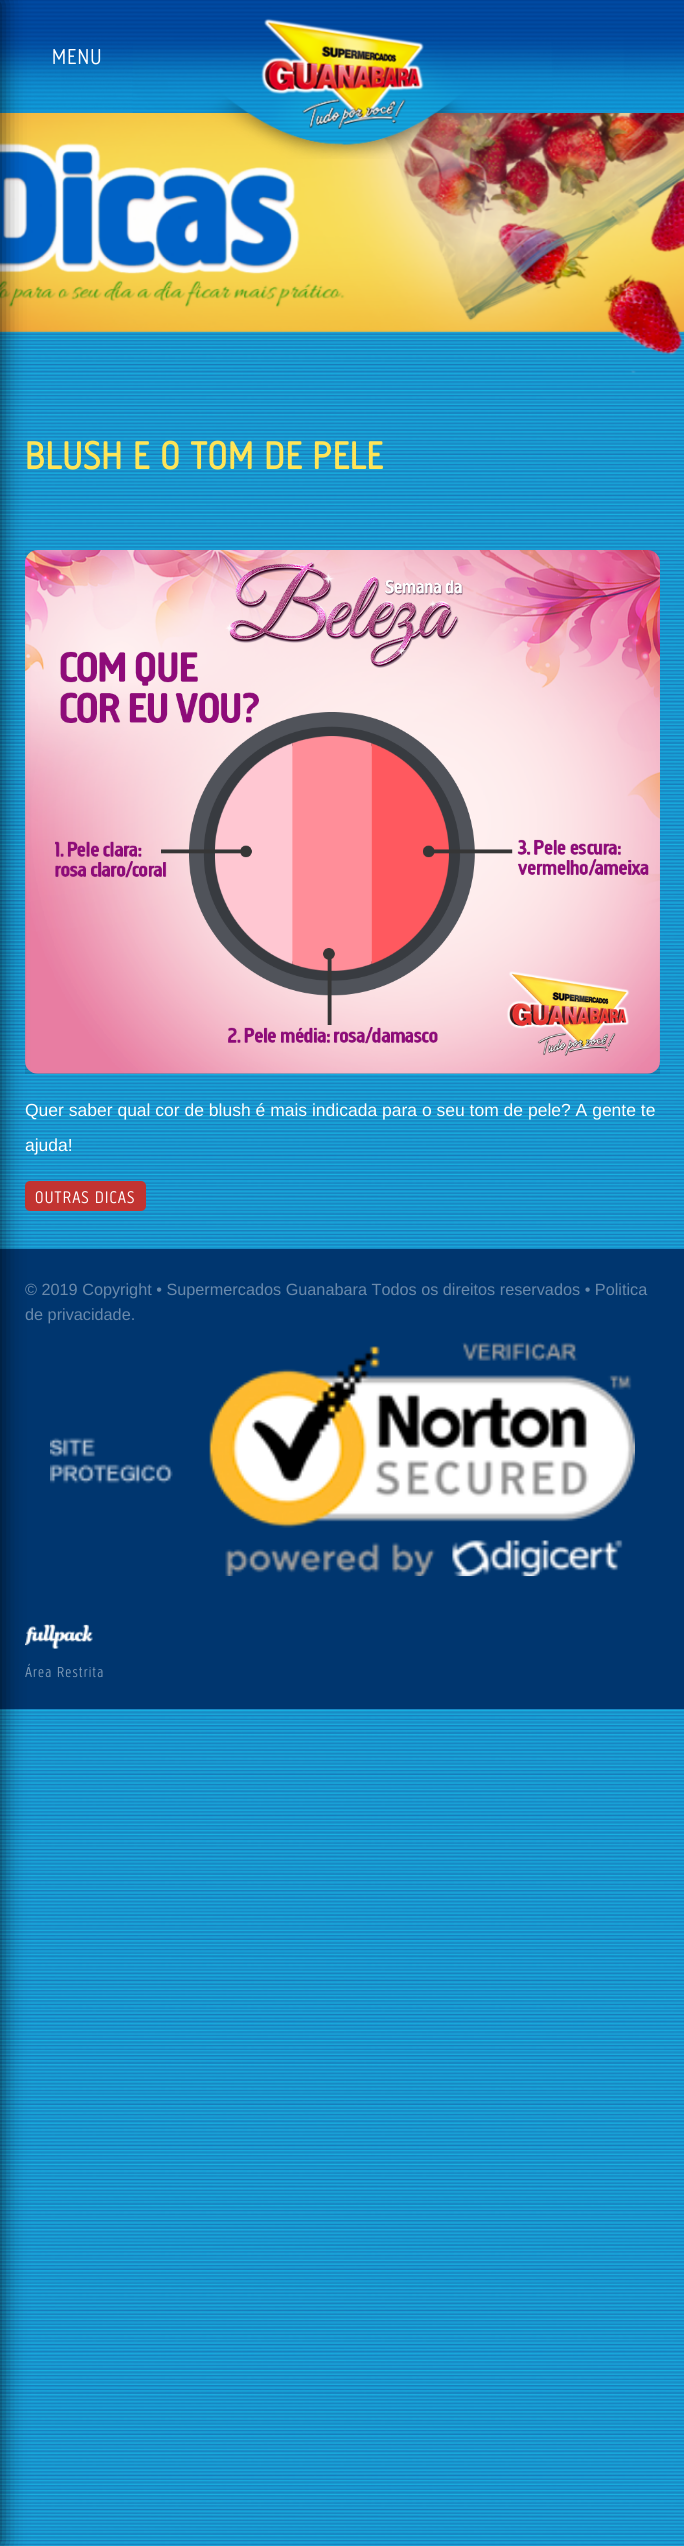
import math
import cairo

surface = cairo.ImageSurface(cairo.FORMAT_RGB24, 684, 2546)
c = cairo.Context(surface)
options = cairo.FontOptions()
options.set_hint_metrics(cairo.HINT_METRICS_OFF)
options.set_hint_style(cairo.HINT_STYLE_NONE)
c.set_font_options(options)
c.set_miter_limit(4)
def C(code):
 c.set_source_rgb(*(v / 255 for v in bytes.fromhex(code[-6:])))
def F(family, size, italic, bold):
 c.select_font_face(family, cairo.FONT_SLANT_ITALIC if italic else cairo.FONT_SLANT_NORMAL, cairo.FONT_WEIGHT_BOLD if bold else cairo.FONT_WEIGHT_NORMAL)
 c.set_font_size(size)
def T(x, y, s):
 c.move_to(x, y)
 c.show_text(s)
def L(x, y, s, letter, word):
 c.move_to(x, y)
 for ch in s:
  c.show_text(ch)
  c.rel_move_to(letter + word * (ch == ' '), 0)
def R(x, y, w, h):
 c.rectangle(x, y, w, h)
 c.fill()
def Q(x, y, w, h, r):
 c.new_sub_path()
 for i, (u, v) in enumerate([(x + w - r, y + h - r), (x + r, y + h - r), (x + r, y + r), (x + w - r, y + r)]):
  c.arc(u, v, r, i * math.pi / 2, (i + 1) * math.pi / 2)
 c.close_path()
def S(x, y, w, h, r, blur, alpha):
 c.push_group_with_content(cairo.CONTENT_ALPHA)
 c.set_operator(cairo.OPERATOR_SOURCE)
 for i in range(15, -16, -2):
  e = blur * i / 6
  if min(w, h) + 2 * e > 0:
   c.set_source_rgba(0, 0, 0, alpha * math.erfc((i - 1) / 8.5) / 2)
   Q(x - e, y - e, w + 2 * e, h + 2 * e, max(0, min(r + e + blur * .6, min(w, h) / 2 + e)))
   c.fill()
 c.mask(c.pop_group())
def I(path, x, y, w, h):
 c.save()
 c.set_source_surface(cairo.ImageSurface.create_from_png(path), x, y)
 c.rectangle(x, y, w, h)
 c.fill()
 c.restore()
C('ffffff')
c.paint()
I('1.png',0,112,684,2434)
I('2.png',0,0,684,113)
I('5.png',0,113,684,260)
c.save()
c.rectangle(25,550,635,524)
c.clip()
C('000000')
S(25,563,635,523,13,22,.2)
c.restore()
I('6.png',25,550,635,524)
C('c23431')
Q(25,1181,121,30,5)
c.fill()
C('00366f')
R(0,1249,684,460)
I('8.png',25,1624,68,25)
C('000000')
S(-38,0,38,2546,0,12.5,.75)
I('4.png',132,42,421,117)
I('3.png',261,18,163,111)
F('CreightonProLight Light',22.5,0,0)
C('ffffff')
L(52,64,'MENU',1.25,0)
F('CreightonProLight',40,0,1)
C('ffe458')
L(25,469,'BLUSH E O TOM DE PELE',1.25,0)
F('Liberation Sans',17.5,0,0)
C('ffffff')
T(25,1116,'Quer saber qual cor de blush é mais indicada para o seu tom de pele? A gente te')
T(25,1151,'ajuda!')
F('CreightonProLight Light',17.5,0,0)
L(35,1203,'OUTRAS DICAS',1.25,0)
F('Liberation Sans',16.25,0,0)
C('6b8aab')
T(25,1295,'© 2019 Copyright • Supermercados Guanabara Todos os direitos reservados • Politica')
T(25,1320,'de privacidade.')
I('7.png',50,1342,585,235)
F('CreightonProLight Light',15,0,0)
C('809bb7')
L(25,1677,'Área Restrita',1.25,0)
surface.write_to_png('o.png')
